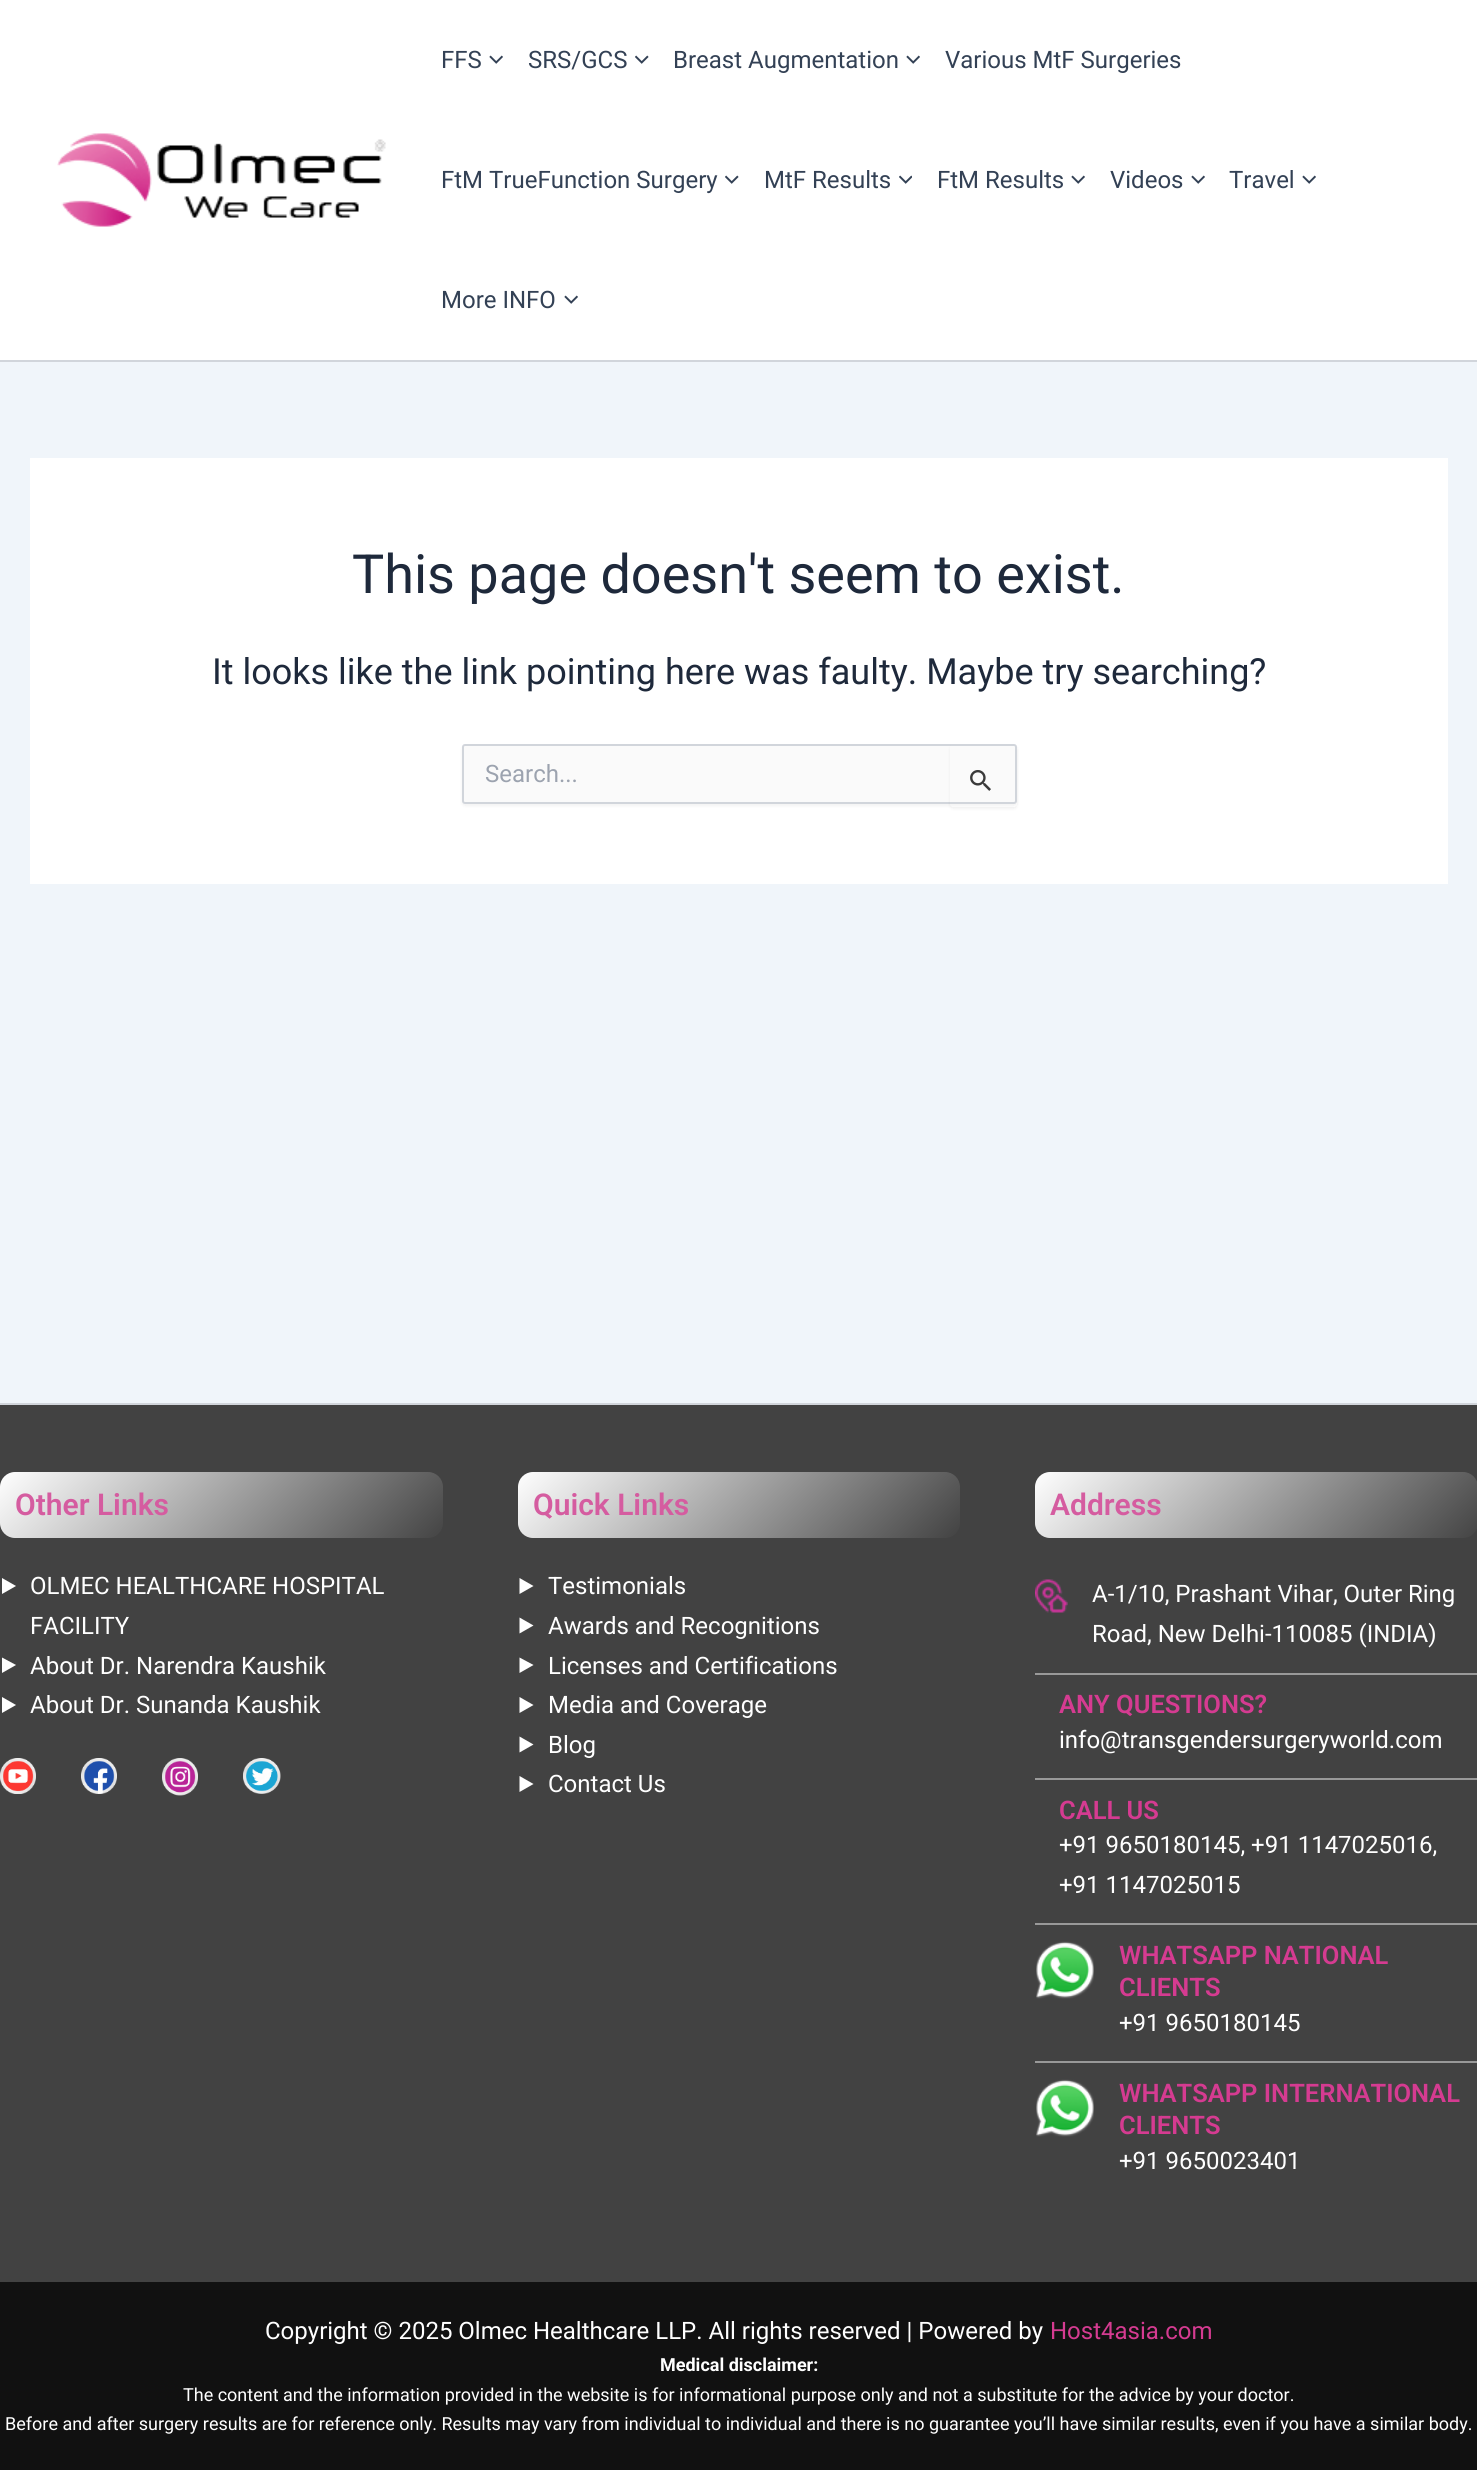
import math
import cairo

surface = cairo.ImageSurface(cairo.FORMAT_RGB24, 1477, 2470)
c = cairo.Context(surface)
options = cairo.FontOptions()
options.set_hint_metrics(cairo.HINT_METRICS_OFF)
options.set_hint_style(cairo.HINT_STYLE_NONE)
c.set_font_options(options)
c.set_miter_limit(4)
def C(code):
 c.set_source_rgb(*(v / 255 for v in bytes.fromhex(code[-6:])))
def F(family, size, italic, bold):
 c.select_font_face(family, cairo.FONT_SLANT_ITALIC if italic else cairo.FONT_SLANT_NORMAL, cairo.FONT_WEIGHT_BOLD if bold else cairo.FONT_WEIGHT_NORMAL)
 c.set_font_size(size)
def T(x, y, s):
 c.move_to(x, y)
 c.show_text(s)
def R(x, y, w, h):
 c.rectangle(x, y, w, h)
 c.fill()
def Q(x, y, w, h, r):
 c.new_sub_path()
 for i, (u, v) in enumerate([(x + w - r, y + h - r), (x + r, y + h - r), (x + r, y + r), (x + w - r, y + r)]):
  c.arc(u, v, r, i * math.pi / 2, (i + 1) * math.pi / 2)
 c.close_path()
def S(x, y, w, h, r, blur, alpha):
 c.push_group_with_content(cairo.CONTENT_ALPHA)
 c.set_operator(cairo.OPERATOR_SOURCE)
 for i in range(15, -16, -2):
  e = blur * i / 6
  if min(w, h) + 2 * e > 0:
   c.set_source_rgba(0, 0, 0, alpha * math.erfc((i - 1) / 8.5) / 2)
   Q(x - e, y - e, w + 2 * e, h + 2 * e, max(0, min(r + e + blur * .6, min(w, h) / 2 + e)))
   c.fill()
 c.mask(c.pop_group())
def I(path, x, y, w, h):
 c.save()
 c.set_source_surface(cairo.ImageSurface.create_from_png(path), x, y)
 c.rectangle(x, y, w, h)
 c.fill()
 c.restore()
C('f0f5fa')
c.paint()
C('ffffff')
R(0,0,1477,360)
C('d1d5db')
R(0,360,1477,2)
I('1.png',57,133,329,94)
F('Roboto',24,0,0)
C('334155')
T(441,68,'FFS')
I('2.png',489,55,14,9)
T(528,68,'SRS/GCS')
I('3.png',635,55,14,9)
T(673,68,'Breast Augmentation')
I('2.png',906,55,14,9)
T(945,68,'Various MtF Surgeries')
T(441,188,'FtM TrueFunction Surgery')
I('3.png',725,175,14,9)
T(764,188,'MtF Results')
I('4.png',899,175,13,9)
T(937,188,'FtM Results')
I('2.png',1071,175,14,9)
T(1110,188,'Videos')
I('2.png',1191,175,14,9)
T(1229,188,'Travel')
I('2.png',1302,175,14,9)
T(441,308,'More INFO')
I('2.png',564,295,14,9)
C('ffffff')
R(30,458,1418,426)
F('Roboto',54,0,0)
C('1e293b')
T(352,593,'This page doesn\'t seem to exist.')
F('Roboto',36,0,0)
T(212,684,'It looks like the link pointing here was faulty. Maybe try searching?')
C('000000')
S(462,746,555,60,3,1.5,.05)
C('fafafa')
Q(463,745,553,58,2)
c.fill_preserve()
C('d1d5db')
c.stroke()
F('Roboto',24,0,0)
C('9ca3af')
T(485,782,'Search...')
I('5.png',970,770,21,21)
c.save()
c.set_fill_rule(cairo.FILL_RULE_EVEN_ODD)
c.new_path()
c.move_to(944,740)
c.line_to(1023,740)
c.line_to(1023,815)
c.line_to(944,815)
c.close_path()
c.move_to(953,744)
c.line_to(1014,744)
c.curve_to(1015.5,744,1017,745.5,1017,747)
c.line_to(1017,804)
c.curve_to(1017,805.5,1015.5,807,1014,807)
c.line_to(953,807)
c.curve_to(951.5,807,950,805.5,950,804)
c.line_to(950,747)
c.curve_to(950,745.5,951.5,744,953,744)
c.close_path()
c.clip()
C('000000')
S(950,746,67,63,3,1.5,.05)
c.restore()
C('424242')
R(0,1405,1477,877)
C('d1d5db')
R(0,1403,1477,2)
gradient = cairo.LinearGradient(94,1377,348,1632)
gradient.add_color_stop_rgba(0,1,1,1,1)
gradient.add_color_stop_rgba(1,0.267,0.267,0.267,1)
c.set_source(gradient)
Q(0,1472,443,66,15)
c.fill()
F('Roboto SemiBold',30,0,0)
C('d55ca0')
T(15,1515,'Other Links')
C('ffffff')
c.new_path()
c.move_to(2,1578)
c.line_to(16,1586)
c.line_to(2,1594)
c.close_path()
c.fill()
F('Roboto',24,0,0)
T(30,1594,'OLMEC HEALTHCARE HOSPITAL')
T(30,1634,'FACILITY')
c.new_path()
c.move_to(2,1657.5)
c.line_to(16,1665)
c.line_to(2,1673)
c.close_path()
c.fill()
T(30,1674,'About Dr. Narendra Kaushik')
c.new_path()
c.move_to(2,1697)
c.line_to(16,1705)
c.line_to(2,1713)
c.close_path()
c.fill()
T(30,1713,'About Dr. Sunanda Kaushik')
I('6.png',0,1758,36,36)
I('7.png',81,1758,36,36)
I('8.png',162,1758,36,38)
I('9.png',243,1758,38,36)
gradient = cairo.LinearGradient(612,1377,866,1632)
gradient.add_color_stop_rgba(0,1,1,1,1)
gradient.add_color_stop_rgba(1,0.259,0.259,0.259,1)
c.set_source(gradient)
Q(518,1472,442,66,15)
c.fill()
F('Roboto SemiBold',30,0,0)
C('d55ca0')
T(533,1515,'Quick Links')
C('ffffff')
c.new_path()
c.move_to(519.5,1578)
c.line_to(533.5,1586)
c.line_to(519.5,1594)
c.close_path()
c.fill()
F('Roboto',24,0,0)
T(548,1594,'Testimonials')
c.new_path()
c.move_to(519.5,1617.5)
c.line_to(533.5,1625.5)
c.line_to(519.5,1633.5)
c.close_path()
c.fill()
T(548,1634,'Awards and Recognitions')
c.new_path()
c.move_to(519.5,1657.5)
c.line_to(533.5,1665)
c.line_to(519.5,1673)
c.close_path()
c.fill()
T(548,1674,'Licenses and Certifications')
c.new_path()
c.move_to(519.5,1697)
c.line_to(533.5,1705)
c.line_to(519.5,1713)
c.close_path()
c.fill()
T(548,1713,'Media and Coverage')
c.new_path()
c.move_to(519.5,1736.5)
c.line_to(533.5,1744.5)
c.line_to(519.5,1752.5)
c.close_path()
c.fill()
T(548,1753,'Blog')
c.new_path()
c.move_to(519.5,1776)
c.line_to(533.5,1784)
c.line_to(519.5,1792)
c.close_path()
c.fill()
T(548,1792,'Contact Us')
gradient = cairo.LinearGradient(1129,1377,1383,1632)
gradient.add_color_stop_rgba(0,1,1,1,1)
gradient.add_color_stop_rgba(1,0.267,0.267,0.267,1)
c.set_source(gradient)
Q(1035,1472,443,66,15)
c.fill()
F('Roboto SemiBold',30,0,0)
C('d55ca0')
T(1050,1515,'Address')
C('999999')
R(1035,1673,442,2)
I('10.png',1035,1579,33,34)
F('Roboto',24,0,0)
C('ffffff')
T(1092,1602,'A-1/10, Prashant Vihar, Outer Ring')
T(1092,1642,'Road, New Delhi-110085 (INDIA)')
C('999999')
R(1035,1778,442,2)
F('Roboto SemiBold',25.5,0,0)
C('d53b91')
T(1059,1713,'ANY QUESTIONS?')
F('Roboto',24,0,0)
C('ffffff')
T(1059,1748,'info@transgendersurgeryworld.com')
C('999999')
R(1035,1923,442,2)
F('Roboto SemiBold',25.5,0,0)
C('d53b91')
T(1059,1819,'CALL US')
F('Roboto',24,0,0)
C('ffffff')
T(1059,1853,'+91 9650180145, +91 1147025016,')
T(1059,1893,'+91 1147025015')
C('999999')
R(1035,2061,442,2)
I('11.png',1036,1941,58,58)
F('Roboto SemiBold',25.5,0,0)
C('d53b91')
T(1119,1964,'WHATSAPP NATIONAL')
T(1119,1996,'CLIENTS')
F('Roboto',24,0,0)
C('ffffff')
T(1119,2031,'+91 9650180145')
I('11.png',1036,2079,58,58)
F('Roboto SemiBold',25.5,0,0)
C('d53b91')
T(1119,2102,'WHATSAPP INTERNATIONAL')
T(1119,2134,'CLIENTS')
F('Roboto',24,0,0)
C('ffffff')
T(1119,2169,'+91 9650023401')
C('111111')
R(0,2282,1477,188)
C('ffffff')
T(265,2339,'Copyright © 2025 Olmec Healthcare LLP. All rights reserved | Powered by')
C('d53b91')
T(1050,2339,'Host4asia.com')
F('Roboto',18,0,1)
C('ffffff')
T(660,2371,'Medical disclaimer:')
F('Roboto',18,0,0)
T(183,2401,'The content and the information provided in the website is for informational purpose only and not a substitute for the advice by your doctor.')
T(5,2430,'Before and after surgery results are for reference only. Results may vary from individual to individual and there is no guarantee you’ll have similar results, even if you have a similar body.')
surface.write_to_png('o.png')
